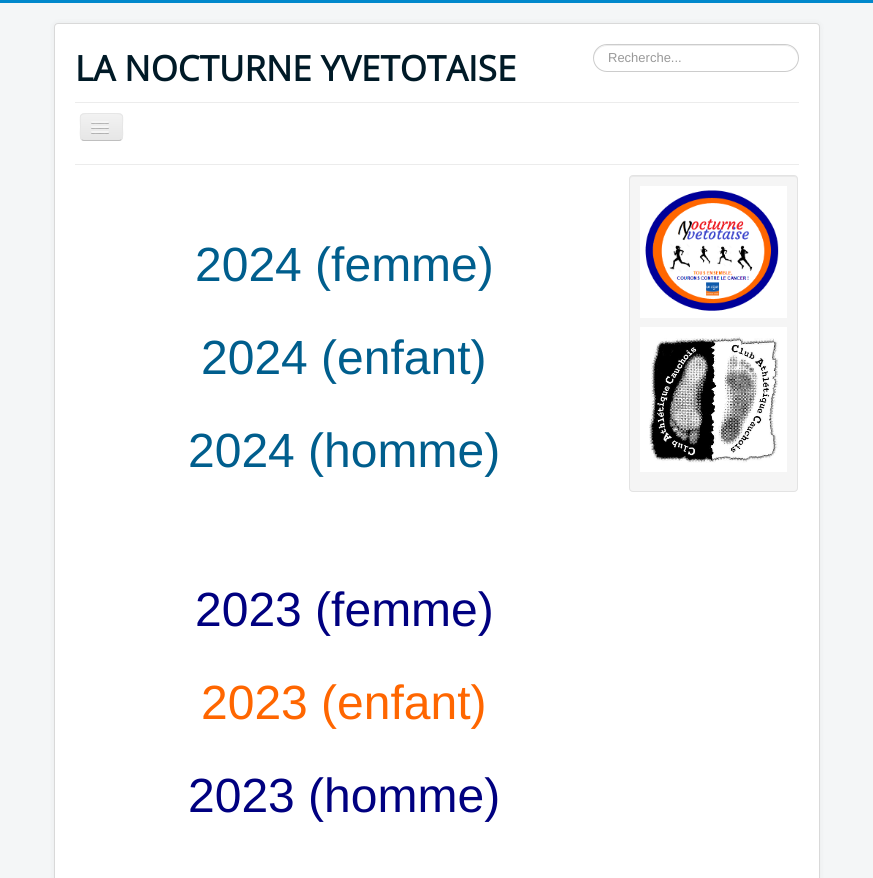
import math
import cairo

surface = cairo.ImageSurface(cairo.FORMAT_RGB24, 873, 878)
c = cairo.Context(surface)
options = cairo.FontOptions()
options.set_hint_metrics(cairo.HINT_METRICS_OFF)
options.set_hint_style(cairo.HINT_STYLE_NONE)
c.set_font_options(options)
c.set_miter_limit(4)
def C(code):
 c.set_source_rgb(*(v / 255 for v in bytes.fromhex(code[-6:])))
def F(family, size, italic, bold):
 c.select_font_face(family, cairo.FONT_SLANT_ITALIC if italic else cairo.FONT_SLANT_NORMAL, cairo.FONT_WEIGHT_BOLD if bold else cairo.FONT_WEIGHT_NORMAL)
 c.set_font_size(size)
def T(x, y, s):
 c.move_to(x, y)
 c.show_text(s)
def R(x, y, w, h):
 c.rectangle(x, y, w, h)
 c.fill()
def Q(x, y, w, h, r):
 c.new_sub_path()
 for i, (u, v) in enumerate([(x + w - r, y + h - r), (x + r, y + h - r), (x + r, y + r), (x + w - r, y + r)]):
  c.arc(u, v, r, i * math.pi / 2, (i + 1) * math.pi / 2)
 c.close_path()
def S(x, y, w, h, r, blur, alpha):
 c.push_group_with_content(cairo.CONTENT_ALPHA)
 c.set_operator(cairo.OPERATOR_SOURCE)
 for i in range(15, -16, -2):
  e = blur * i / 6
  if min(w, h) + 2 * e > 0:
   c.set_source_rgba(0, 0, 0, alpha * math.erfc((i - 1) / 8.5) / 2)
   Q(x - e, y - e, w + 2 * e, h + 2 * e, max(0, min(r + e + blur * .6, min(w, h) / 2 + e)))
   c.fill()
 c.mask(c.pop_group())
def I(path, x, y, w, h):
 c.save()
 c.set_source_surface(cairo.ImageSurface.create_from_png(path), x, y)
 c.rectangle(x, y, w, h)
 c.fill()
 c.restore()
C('f4f6f7')
c.paint()
C('0088cc')
R(0,0,873,3)
C('000000')
S(54,23,766,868,4,3,.05)
C('ffffff')
Q(54,23,766,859,4)
c.fill()
Q(54.5,23.5,765,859,3.5)
c.set_source_rgba(0,0,0,0.15)
c.set_line_width(1)
c.stroke()
F('Open Sans',34.9,0,1)
C('001a27')
T(75,81,'LA NOCTURNE YVETOTAISE')
C('ececec')
c.new_path()
c.move_to(607,46)
c.line_to(785,46)
c.curve_to(792,46,798,52,798,59)
c.curve_to(799,38,763,45,755,45)
c.line_to(637,45)
c.curve_to(629,45,593,38,594,59)
c.curve_to(594,52,600,46,607,46)
c.close_path()
c.fill()
Q(593.5,44.5,205,27,13.5)
C('cccccc')
c.stroke()
F('Liberation Sans',13,0,0)
C('999999')
T(608,62,'Recherche...')
C('ececec')
R(75,102,724,1)
R(75,164,724,1)
C('ededed')
Q(80,113,43,28,4)
c.fill()
c.save()
Q(80,113,43,28,4)
c.clip()
gradient = cairo.LinearGradient(102,114,102,140)
gradient.add_color_stop_rgba(0,0.949,0.949,0.949,1)
gradient.add_color_stop_rgba(1,0.902,0.902,0.902,1)
c.set_source(gradient)
R(80,114,43,26)
c.restore()
c.new_path()
c.move_to(121.5,139.5)
c.curve_to(121,140,120,140.5,119,140.5)
c.line_to(84,140.5)
c.curve_to(83,140.5,82,140,81.5,139.5)
C('bfbfbf')
c.stroke()
c.new_path()
c.move_to(81.5,139.5)
c.curve_to(79.5,137,80.5,129.5,80.5,127)
c.curve_to(80.5,115,78,113.5,90,113.5)
c.line_to(113,113.5)
c.curve_to(125,113.5,122.5,115,122.5,127)
c.curve_to(122.5,129.5,123.5,137,121.5,139.5)
C('e6e6e6')
c.stroke()
C('b3b3b3')
c.new_path()
c.move_to(91,122.5)
c.curve_to(90,124.5,94.5,124,94.5,124)
c.line_to(105.5,124)
c.curve_to(105.5,124,110,124.5,109,122.5)
c.curve_to(108,123.5,101.5,123,100,123)
c.curve_to(98.5,123,92,123.5,91,122.5)
c.close_path()
c.fill()
C('f5f5f5')
Q(91,121,18,2,1)
c.fill()
C('b0b0b0')
c.new_path()
c.move_to(91,127.5)
c.curve_to(90,129.5,94.5,129,94.5,129)
c.line_to(105.5,129)
c.curve_to(105.5,129,110,129.5,109,127.5)
c.curve_to(108,128.5,101.5,128,100,128)
c.curve_to(98.5,128,92,128.5,91,127.5)
c.close_path()
c.fill()
C('f5f5f5')
Q(91,126,18,2,1)
c.fill()
C('afafaf')
c.new_path()
c.move_to(91,132.5)
c.curve_to(90,134.5,94.5,134,94.5,134)
c.line_to(105.5,134)
c.curve_to(105.5,134,110,134.5,109,132.5)
c.curve_to(108,133.5,101.5,133,100,133)
c.curve_to(98.5,133,92,133.5,91,132.5)
c.close_path()
c.fill()
C('f5f5f5')
Q(91,131,18,2,1)
c.fill()
F('Liberation Sans',48,0,0)
C('005e8d')
T(195,281,'2024 (femme)')
T(201,374,'2024 (enfant)')
T(188,467,'2024 (homme)')
C('000080')
T(195,626,'2023 (femme)')
C('ff6600')
T(201,719,'2023 (enfant)')
C('000080')
T(188,812,'2023 (homme)')
C('f5f5f5')
Q(629,175,169,317,4)
c.fill()
C('e9e9e9')
c.new_path()
c.move_to(633,177)
c.line_to(794,177)
c.curve_to(796,177,797,178,797,180)
c.line_to(797,179)
c.curve_to(797,177,796,176,794,176)
c.line_to(633,176)
c.curve_to(631,176,630,177,630,179)
c.line_to(630,180)
c.curve_to(630,178,631,177,633,177)
c.close_path()
c.fill()
Q(629.5,175.5,168,316,3.5)
C('e3e3e3')
c.stroke()
I('1.png',640,186,147,132)
I('2.png',640,327,147,145)
surface.write_to_png('o.png')
